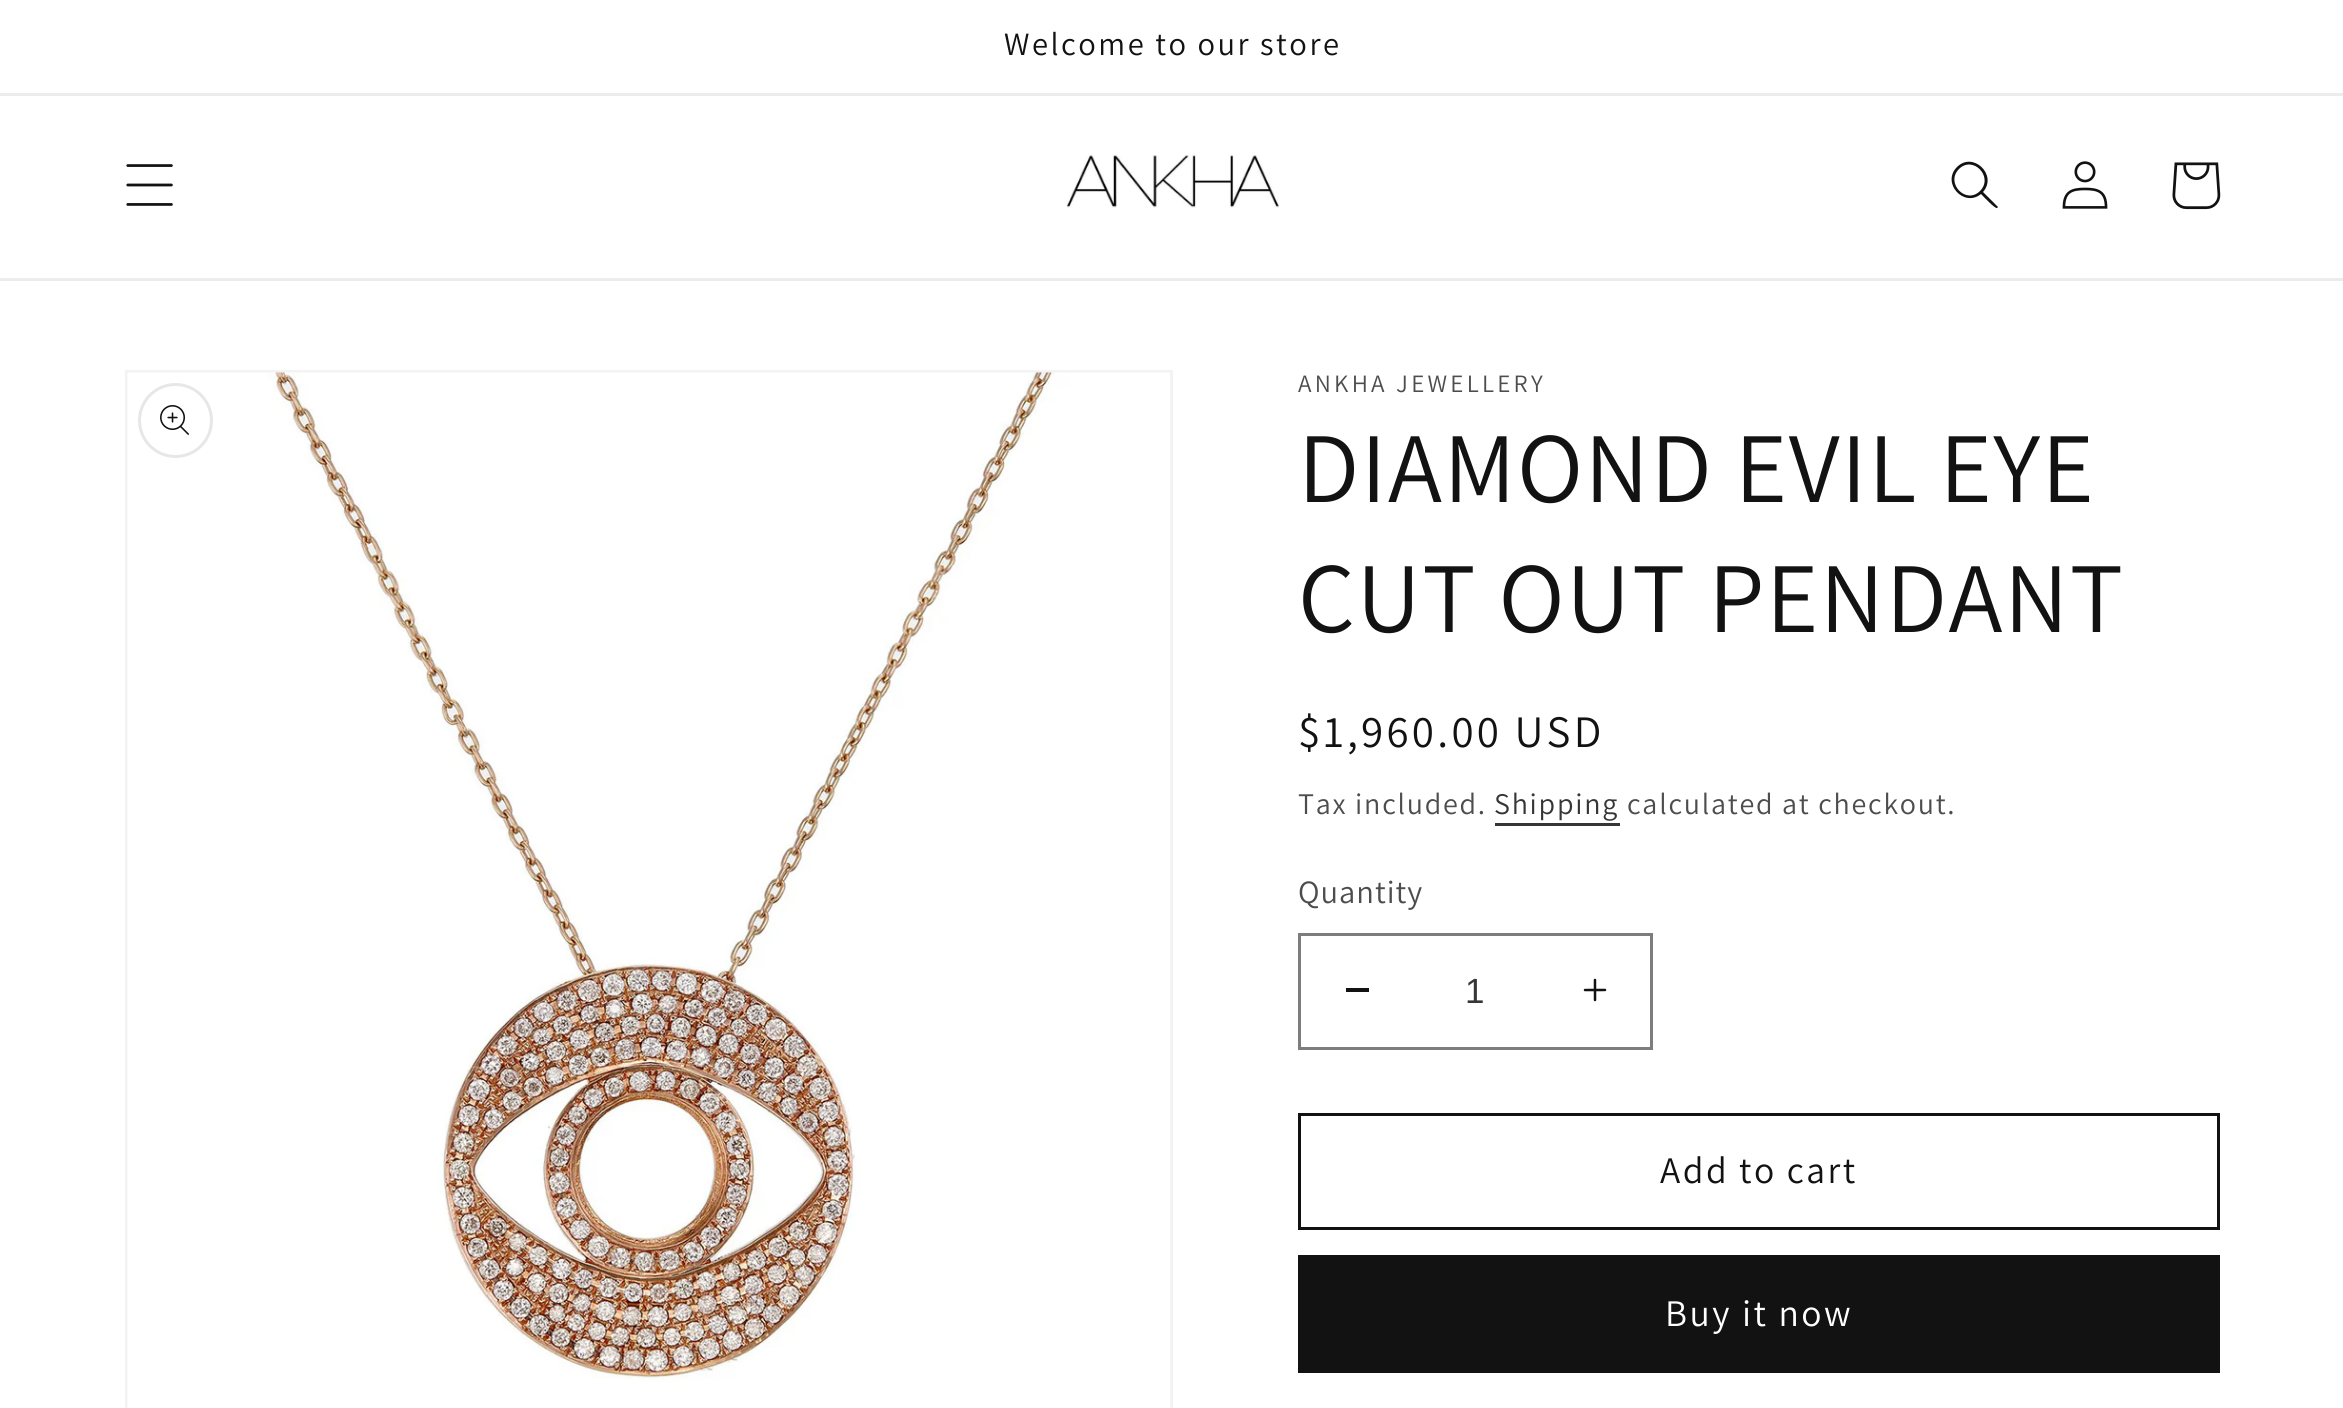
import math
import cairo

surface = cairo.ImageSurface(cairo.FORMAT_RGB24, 2343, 1408)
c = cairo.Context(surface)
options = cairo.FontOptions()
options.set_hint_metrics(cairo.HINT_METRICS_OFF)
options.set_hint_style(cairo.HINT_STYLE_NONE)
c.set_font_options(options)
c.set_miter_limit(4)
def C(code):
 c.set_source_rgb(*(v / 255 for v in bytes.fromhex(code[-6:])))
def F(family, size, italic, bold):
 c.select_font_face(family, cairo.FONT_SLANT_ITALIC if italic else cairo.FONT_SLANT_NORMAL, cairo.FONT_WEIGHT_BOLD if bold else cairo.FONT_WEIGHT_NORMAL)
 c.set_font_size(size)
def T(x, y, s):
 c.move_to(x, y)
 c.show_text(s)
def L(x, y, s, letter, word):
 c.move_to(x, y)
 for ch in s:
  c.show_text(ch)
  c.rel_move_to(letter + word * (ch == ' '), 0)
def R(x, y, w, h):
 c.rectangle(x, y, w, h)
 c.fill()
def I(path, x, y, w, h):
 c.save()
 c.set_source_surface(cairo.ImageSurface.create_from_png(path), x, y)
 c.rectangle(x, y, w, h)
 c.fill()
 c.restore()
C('ffffff')
c.paint()
C('ececec')
R(0,93,2343,3)
F('Assistant',32.5,0,0)
C('121212')
L(1004,55,'Welcome to our store',2.5,0)
C('ececec')
R(0,278,2343,3)
I('1.png',126,164,47,42)
I('2.png',1066,153,213,55)
C('121212')
c.set_fill_rule(cairo.FILL_RULE_EVEN_ODD)
c.new_path()
c.move_to(1980,191)
c.curve_to(1966,205,1945,183,1959,169)
c.curve_to(1973,155,1994,177,1980,191)
c.close_path()
c.move_to(1981,194)
c.curve_to(1964,208,1941,183,1957,167)
c.curve_to(1973,151,1998,175,1983,192)
c.line_to(1998,207)
c.line_to(1997,208)
c.curve_to(1995,209,1983,196,1981,194)
c.close_path()
c.fill()
I('3.png',2062,161,46,48)
I('4.png',2172,162,49,48)
c.rectangle(126.5,371.5,1045,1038)
C('f3f3f3')
c.set_line_width(3)
c.stroke()
I('5.png',127,372,1043,1036)
c.arc(175.5,420.5,36,0,2 * math.pi)
C('e7e7e7')
c.stroke()
I('6.png',160,405,29,30)
F('Assistant',25,0,0)
C('4d4d4d')
L(1298,392,'ANKHA JEWELLERY',3.25,0)
F('Assistant',100,0,0)
C('121212')
L(1298,502,'DIAMOND EVIL EYE',1.5,0)
L(1298,632,'CUT OUT PENDANT',1.5,0)
F('Assistant',45,0,0)
L(1298,747,'$1,960.00 USD',3.25,0)
F('Assistant',30,0,0)
C('4d4d4d')
L(1298,814,'Tax included.',1.75,0)
C('363636')
L(1494,814,'Shipping',1.75,0)
R(1495,823,125,3)
C('4d4d4d')
L(1627,814,'calculated at checkout.',1.75,0)
F('Assistant',32.5,0,0)
L(1298,903,'Quantity',1,0)
C('121212')
R(1346,988,23,4)
I('7.png',1583,978,24,24)
c.rectangle(1299.5,934.5,352,114)
C('7d7d7d')
c.stroke()
F('Liberation Sans',35,0,0)
C('363636')
T(1465,1003,'1')
c.rectangle(1299.5,1114.5,919,114)
C('121212')
c.stroke()
F('Assistant',37.5,0,0)
L(1660,1183,'Add to cart',2.5,0)
R(1298,1255,922,118)
C('ffffff')
L(1665,1326,'Buy it now',2.5,0)
surface.write_to_png('o.png')
